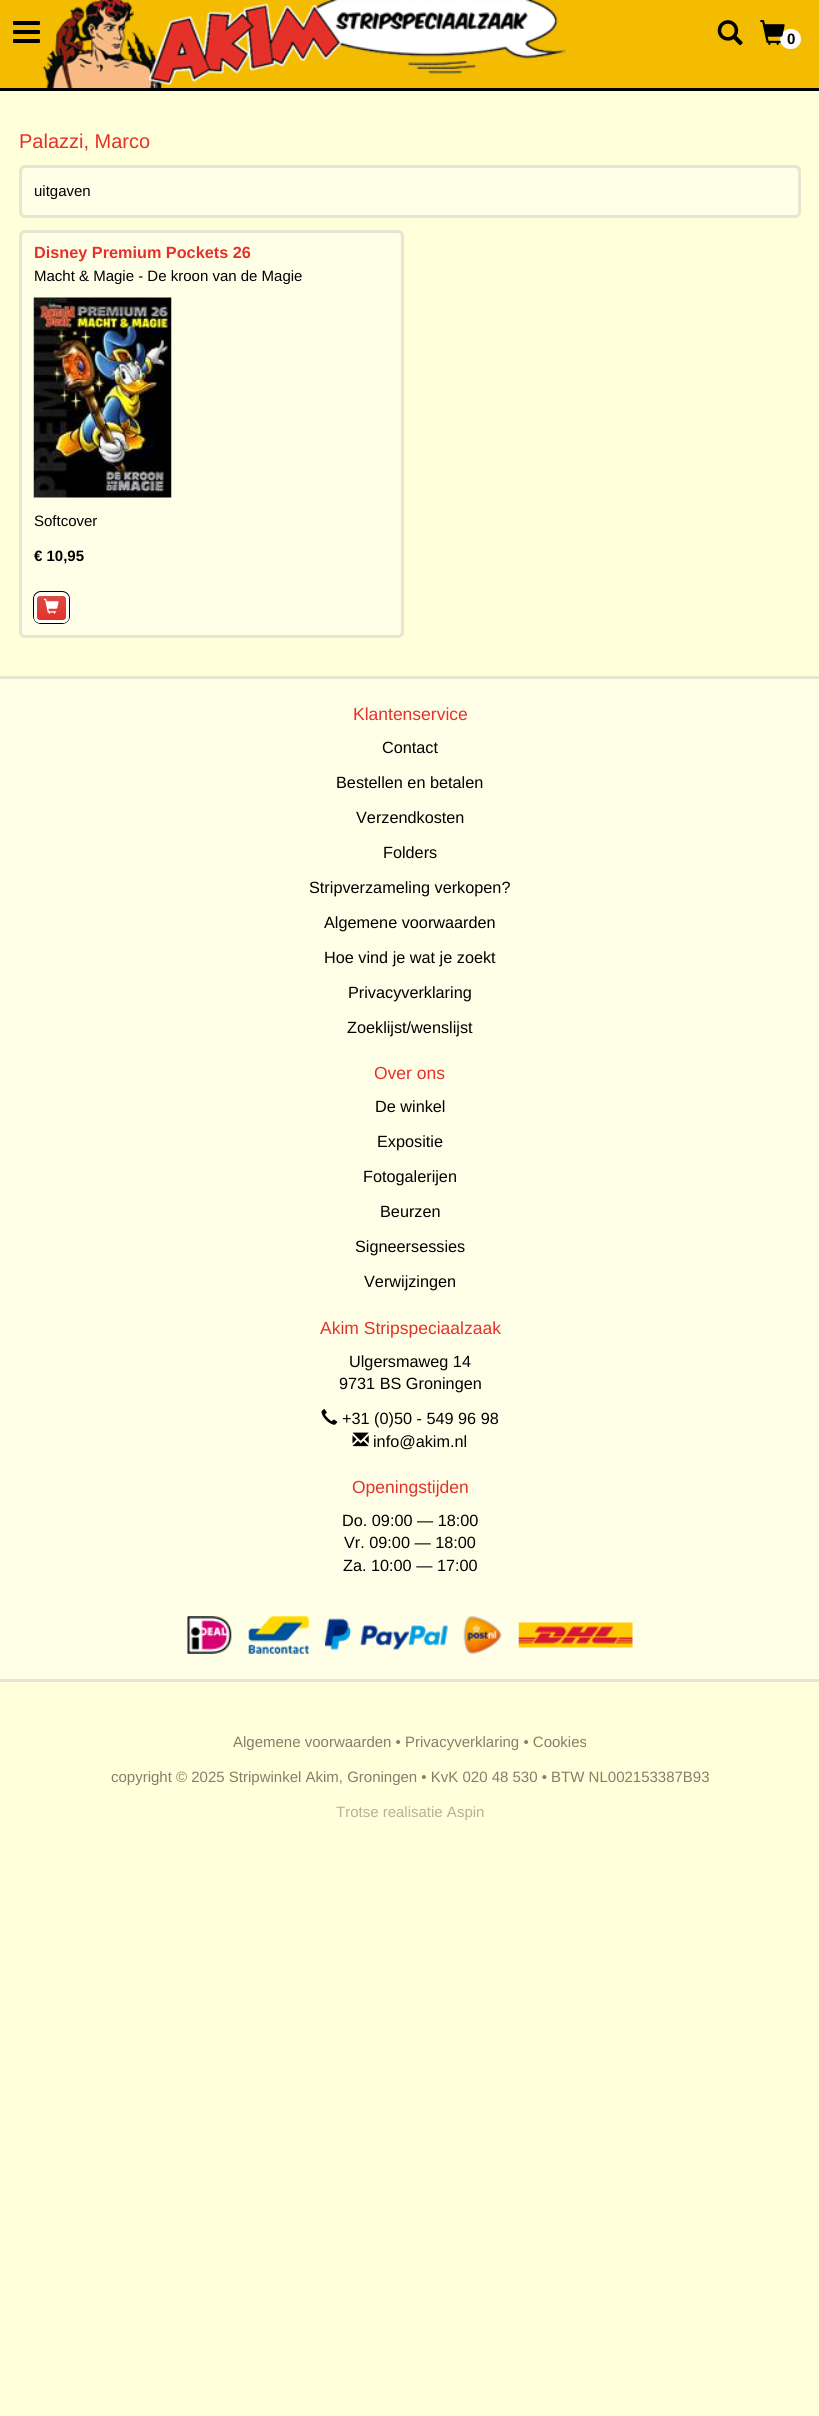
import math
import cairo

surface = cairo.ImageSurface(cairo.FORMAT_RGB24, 819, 2416)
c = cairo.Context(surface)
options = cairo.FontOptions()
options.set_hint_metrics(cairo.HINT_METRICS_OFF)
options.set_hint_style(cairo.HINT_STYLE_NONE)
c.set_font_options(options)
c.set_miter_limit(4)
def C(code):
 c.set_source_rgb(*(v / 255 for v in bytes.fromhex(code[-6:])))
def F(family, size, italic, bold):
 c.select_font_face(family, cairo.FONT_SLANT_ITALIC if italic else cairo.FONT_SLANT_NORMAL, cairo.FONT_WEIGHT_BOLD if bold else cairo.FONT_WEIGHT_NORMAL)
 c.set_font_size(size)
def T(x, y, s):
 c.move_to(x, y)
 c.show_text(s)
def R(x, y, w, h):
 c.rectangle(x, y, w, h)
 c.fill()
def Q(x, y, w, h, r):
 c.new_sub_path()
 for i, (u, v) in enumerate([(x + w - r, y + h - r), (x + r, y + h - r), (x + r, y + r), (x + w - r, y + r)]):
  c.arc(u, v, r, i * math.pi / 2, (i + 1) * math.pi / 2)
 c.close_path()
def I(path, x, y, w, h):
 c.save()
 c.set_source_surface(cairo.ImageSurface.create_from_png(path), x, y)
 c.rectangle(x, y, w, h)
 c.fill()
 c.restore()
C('ffffd9')
c.paint()
C('e6e6c3')
R(0,1681,819,1)
C('f3bc00')
R(0,0,819,88)
C('000000')
R(0,88,819,3)
I('1.png',42,0,524,88)
C('f3bc00')
Q(0,10,53,44,5)
c.fill()
C('000000')
Q(13,21,27,4,1)
c.fill()
Q(13,30,27,4,1)
c.fill()
Q(13,39,27,4,1)
c.fill()
I('2.png',717,20,26,26)
C('ffffff')
Q(780,29,21,20,10)
c.fill()
I('3.png',760,20,25,25)
F('Liberation Sans',15,0,1)
C('000000')
T(787,44,'0')
F('Liberation Sans',20,0,0)
C('e4312a')
T(19,148,'Palazzi, Marco')
C('ffffe8')
Q(19,165,782,53,6)
c.fill()
Q(20.5,166.5,779,50,4.5)
c.set_source_rgba(0,0,0,0.1)
c.set_line_width(3)
c.stroke()
F('Liberation Sans',15,0,0)
C('000000')
T(34,196,'uitgaven')
C('ffffe8')
Q(19,230,385,408,6)
c.fill()
Q(20.5,231.5,382,405,4.5)
c.set_source_rgba(0,0,0,0.1)
c.stroke()
F('Liberation Sans',16.25,0,1)
C('e4312a')
T(34,258,'Disney Premium Pockets 26')
F('Liberation Sans',15,0,0)
C('000000')
T(34,281,'Macht & Magie - De kroon van de Magie')
I('4.png',33,297,139,201)
T(34,526,'Softcover')
F('Liberation Sans',15,0,1)
T(34,561,'€ 10,95')
Q(33.5,591.5,36,32,7.5)
c.set_line_width(1)
c.stroke()
c.save()
Q(34,593,35,30,6)
c.clip()
gradient = cairo.LinearGradient(51,595,51,620)
gradient.add_color_stop_rgba(.01,0.886,0.337,0.318,1)
gradient.add_color_stop_rgba(.01,0.859,0.302,0.282,1)
gradient.add_color_stop_rgba(1,0.894,0.192,0.165,1)
gradient.add_color_stop_rgba(1,0.886,0.337,0.318,1)
gradient.add_color_stop_rgba(1,0.894,0.192,0.165,1)
c.set_source(gradient)
R(34,595,35,25)
c.restore()
Q(35.5,594.5,32,27,4.5)
C('ffffff')
c.set_line_width(3)
c.stroke()
I('5.png',43,598,16,16)
C('ffffe8')
R(0,679,819,1000)
C('e6e6d1')
R(0,676,819,3)
F('Liberation Sans',17.5,0,0)
C('e4312a')
T(353,720,'Klantenservice')
F('Liberation Sans',16.25,0,0)
C('000000')
T(382,753,'Contact')
T(336,788,'Bestellen en betalen')
T(356,823,'Verzendkosten')
T(383,858,'Folders')
T(309,893,'Stripverzameling verkopen?')
T(324,928,'Algemene voorwaarden')
T(324,963,'Hoe vind je wat je zoekt')
T(348,998,'Privacyverklaring')
T(347,1033,'Zoeklijst/wenslijst')
F('Liberation Sans',17.5,0,0)
C('e4312a')
T(374,1079,'Over ons')
F('Liberation Sans',16.25,0,0)
C('000000')
T(375,1112,'De winkel')
T(377,1147,'Expositie')
T(363,1182,'Fotogalerijen')
T(380,1217,'Beurzen')
T(355,1252,'Signeersessies')
T(364,1287,'Verwijzingen')
F('Liberation Sans',17.5,0,0)
C('e4312a')
T(320,1334,'Akim Stripspeciaalzaak')
F('Liberation Sans',16.25,0,0)
C('000000')
T(349,1367,'Ulgersmaweg 14')
T(339,1389,'9731 BS Groningen')
I('6.png',321,1409,17,16)
T(342,1424,'+31 (0)50 - 549 96 98')
I('7.png',352,1432,17,15)
T(373,1447,'info@akim.nl')
F('Liberation Sans',17.5,0,0)
C('e4312a')
T(352,1493,'Openingstijden')
F('Liberation Sans',16.25,0,0)
C('000000')
T(342,1526,'Do. 09:00 — 18:00')
T(344,1548,'Vr. 09:00 — 18:00')
T(343,1571,'Za. 10:00 — 17:00')
C('e6e6d1')
R(0,1679,819,2)
I('8.png',187,1616,45,38)
I('9.png',248,1616,61,38)
I('10.png',325,1618,123,33)
I('11.png',463,1616,39,38)
I('12.png',518,1622,115,26)
F('Liberation Sans',15,0,0)
C('80806d')
T(233,1747,'Algemene voorwaarden • Privacyverklaring • Cookies')
T(111,1782,'copyright © 2025 Stripwinkel Akim, Groningen • KvK 020 48 530 • BTW NL002153387B93')
C('b3b398')
T(336,1817,'Trotse realisatie Aspin')
surface.write_to_png('o.png')
